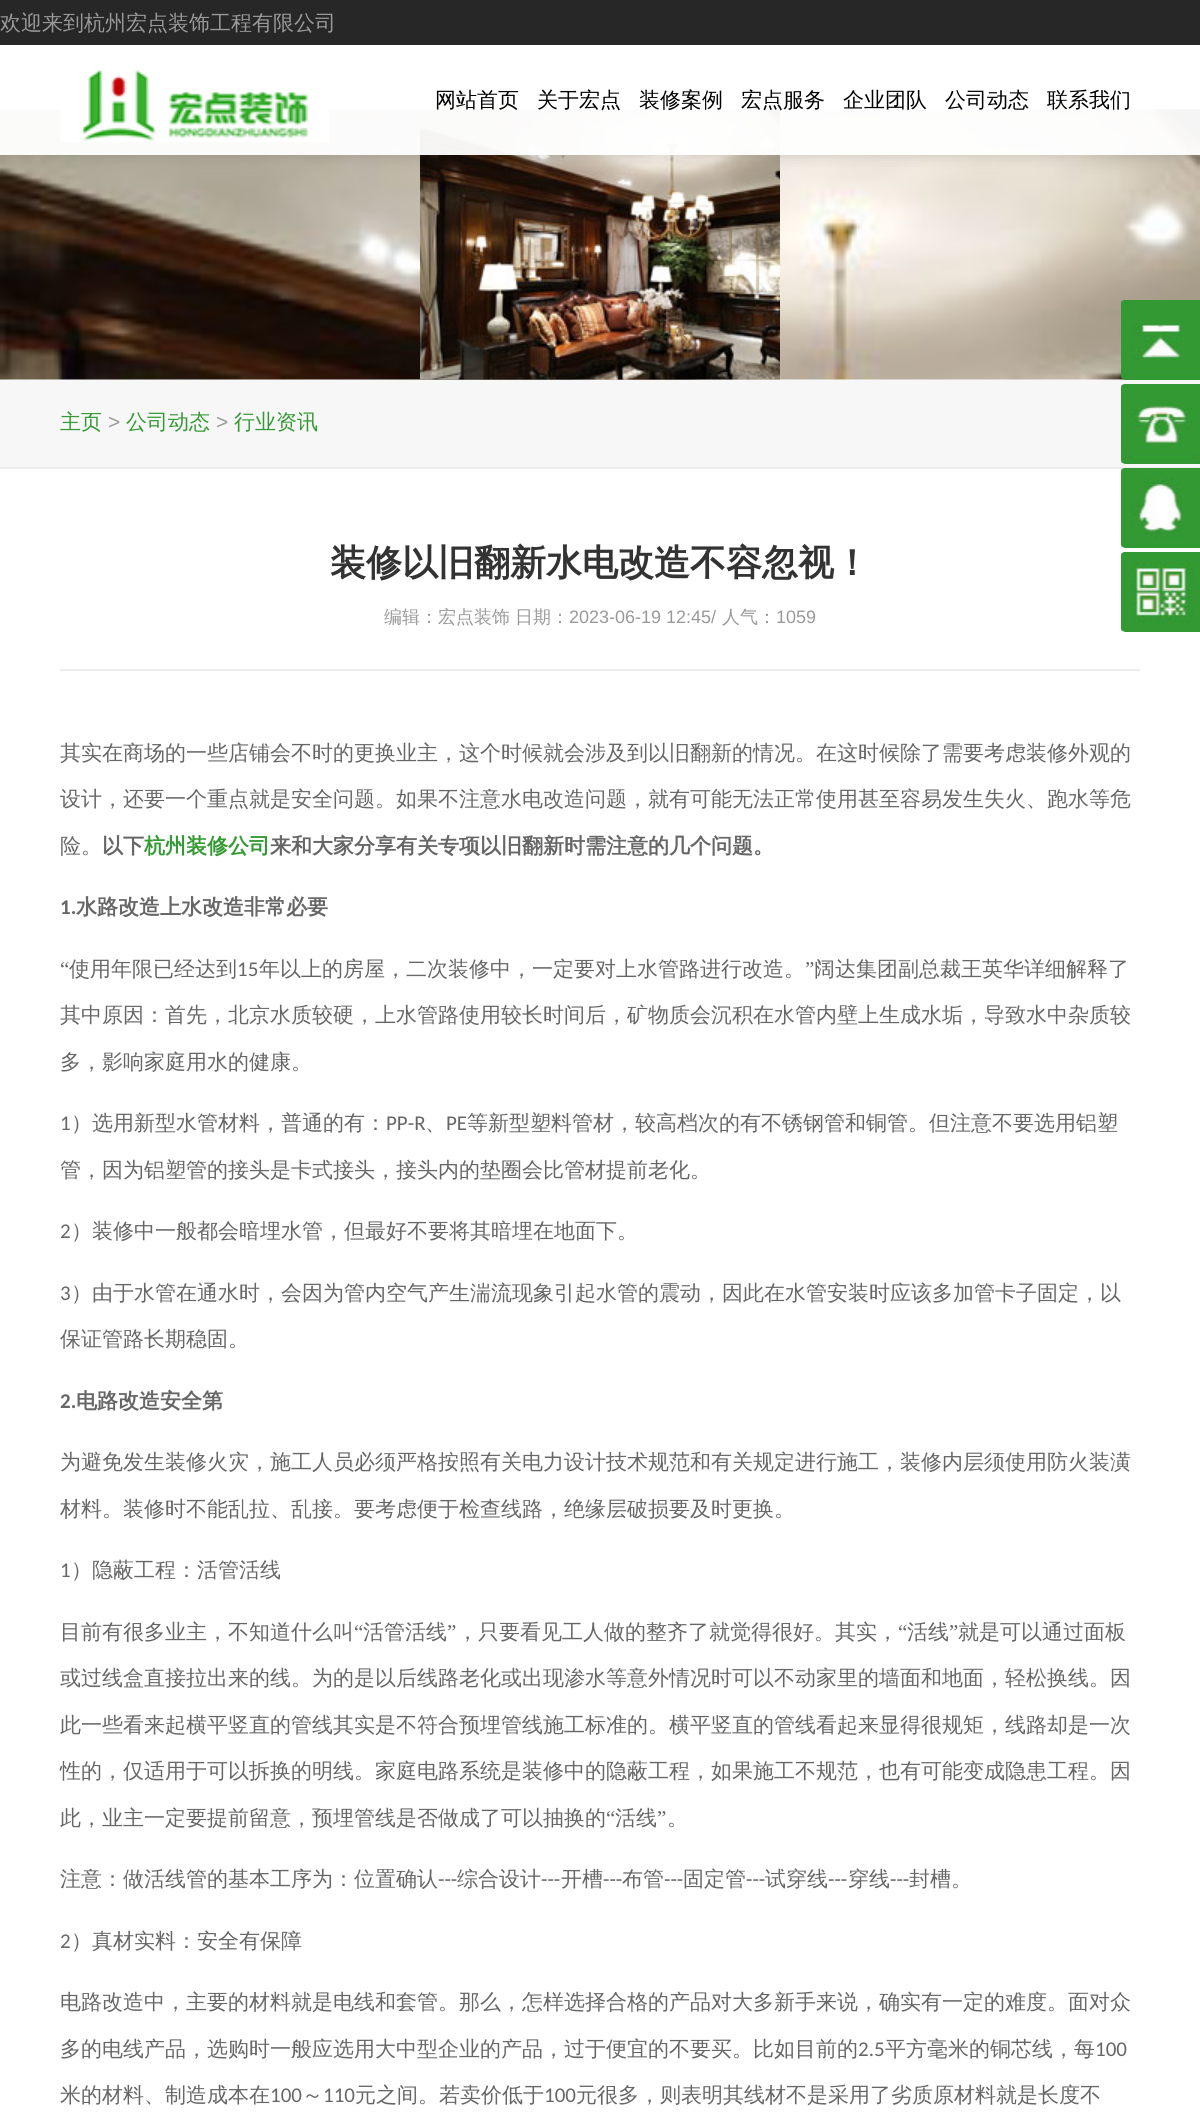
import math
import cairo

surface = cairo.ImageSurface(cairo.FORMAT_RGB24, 1200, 2121)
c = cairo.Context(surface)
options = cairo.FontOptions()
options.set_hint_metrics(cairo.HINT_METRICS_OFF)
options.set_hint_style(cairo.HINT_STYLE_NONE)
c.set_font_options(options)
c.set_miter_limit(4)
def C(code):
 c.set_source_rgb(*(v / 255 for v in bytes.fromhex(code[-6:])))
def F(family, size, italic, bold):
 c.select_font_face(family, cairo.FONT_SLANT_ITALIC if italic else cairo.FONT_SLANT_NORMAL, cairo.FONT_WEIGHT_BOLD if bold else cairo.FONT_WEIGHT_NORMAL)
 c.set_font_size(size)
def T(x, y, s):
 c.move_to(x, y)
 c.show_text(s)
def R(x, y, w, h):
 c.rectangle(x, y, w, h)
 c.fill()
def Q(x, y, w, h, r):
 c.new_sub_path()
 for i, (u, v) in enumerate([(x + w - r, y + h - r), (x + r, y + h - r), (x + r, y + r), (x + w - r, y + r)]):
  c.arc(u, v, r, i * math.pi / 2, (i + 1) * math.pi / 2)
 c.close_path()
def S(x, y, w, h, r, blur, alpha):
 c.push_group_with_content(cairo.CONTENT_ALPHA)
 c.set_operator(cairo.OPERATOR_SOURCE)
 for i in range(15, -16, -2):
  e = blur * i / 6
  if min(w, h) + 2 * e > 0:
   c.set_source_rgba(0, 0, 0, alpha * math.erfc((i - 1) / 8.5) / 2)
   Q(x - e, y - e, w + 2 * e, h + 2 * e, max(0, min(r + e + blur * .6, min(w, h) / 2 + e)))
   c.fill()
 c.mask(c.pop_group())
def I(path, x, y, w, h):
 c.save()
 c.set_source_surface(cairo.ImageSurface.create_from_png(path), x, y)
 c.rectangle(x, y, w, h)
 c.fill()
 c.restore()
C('ffffff')
c.paint()
I('2.png',0,109,1200,271)
I('3.png',420,109,360,271)
c.save()
c.set_fill_rule(cairo.FILL_RULE_EVEN_ODD)
c.new_path()
c.move_to(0,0)
c.line_to(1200,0)
c.line_to(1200,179)
c.line_to(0,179)
c.close_path()
c.move_to(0,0)
c.line_to(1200,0)
c.line_to(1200,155)
c.line_to(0,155)
c.close_path()
c.clip()
C('000000')
S(0,0,1200,155,0,7.5,.15)
c.restore()
c.set_source_rgba(1,1,1,0.95)
R(0,109,1200,46)
C('272727')
R(0,0,1200,45)
F('WenQuanYi Zen Hei Medium',21,0,0)
C('999999')
T(0,30,'欢迎来到杭州宏点装饰工程有限公司')
I('1.png',60,70,269,72)
C('000000')
T(435,107,'网站首页')
T(537,107,'关于宏点')
T(639,107,'装修案例')
T(741,107,'宏点服务')
T(843,107,'企业团队')
T(945,107,'公司动态')
T(1047,107,'联系我们')
C('f7f7f7')
R(0,380,1200,87)
C('ededed')
R(0,467,1200,2)
C('339933')
T(60,429,'主页')
F('Liberation Sans',21,0,0)
C('999999')
T(108,429,'>')
F('WenQuanYi Zen Hei Medium',21,0,0)
C('339933')
T(126,429,'公司动态')
F('Liberation Sans',21,0,0)
C('999999')
T(216,429,'>')
F('WenQuanYi Zen Hei Medium',21,0,0)
C('339933')
T(234,429,'行业资讯')
Q(1121,300,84,80,5)
c.fill()
I('4.png',1121,300,79,80)
Q(1121,384,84,80,5)
c.fill()
I('5.png',1121,384,79,80)
Q(1121,468,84,80,5)
c.fill()
I('6.png',1121,468,79,80)
Q(1121,552,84,80,5)
c.fill()
I('7.png',1121,552,79,80)
F('WenQuanYi Zen Hei',36,0,1)
C('333333')
T(330,575,'装修以旧翻新水电改造不容忽视！')
C('ededed')
R(60,669,1080,2)
F('WenQuanYi Zen Hei Medium',18,0,0)
C('999999')
T(384,623,'编辑：宏点装饰')
T(515,623,'日期：')
F('Liberation Sans',18,0,0)
T(569,623,'2023-06-19 12:45/')
F('WenQuanYi Zen Hei Medium',18,0,0)
T(722,623,'人气：')
F('Liberation Sans',18,0,0)
T(776,623,'1059')
F('WenQuanYi Zen Hei Medium',21,0,0)
C('666666')
T(60,760,'其实在商场的一些店铺会不时的更换业主，这个时候就会涉及到以旧翻新的情况。在这时候除了需要考虑装修外观的')
T(60,806,'设计，还要一个重点就是安全问题。如果不注意水电改造问题，就有可能无法正常使用甚至容易发生失火、跑水等危')
T(60,853,'险。')
F('WenQuanYi Zen Hei',21,0,1)
T(102,853,'以下')
C('339933')
T(144,853,'杭州装修公司')
C('666666')
T(270,853,'来和大家分享有关专项以旧翻新时需注意的几个问题。')
F('Carlito',21,0,1)
T(60,914,'1.')
F('WenQuanYi Zen Hei',21,0,1)
T(76,914,'水路改造上水改造非常必要')
F('Liberation Serif',21,0,0)
T(60,976,'“')
F('WenQuanYi Zen Hei Medium',21,0,0)
T(69,976,'使用年限已经达到')
F('Carlito',21,0,0)
T(237,976,'15')
F('WenQuanYi Zen Hei Medium',21,0,0)
T(259,976,'年以上的房屋，二次装修中，一定要对上水管路进行改造。')
F('Liberation Serif',21,0,0)
T(805,976,'”')
F('WenQuanYi Zen Hei Medium',21,0,0)
T(814,976,'阔达集团副总裁王英华详细解释了')
T(60,1022,'其中原因：首先，北京水质较硬，上水管路使用较长时间后，矿物质会沉积在水管内壁上生成水垢，导致水中杂质较')
T(60,1069,'多，影响家庭用水的健康。')
F('Carlito',21,0,0)
T(60,1130,'1')
F('WenQuanYi Zen Hei Medium',21,0,0)
T(71,1130,'）选用新型水管材料，普通的有：')
F('Carlito',21,0,0)
T(386,1130,'PP-R')
T(446,1130,'PE')
F('WenQuanYi Zen Hei Medium',21,0,0)
T(467,1130,'等新型塑料管材，较高档次的有不锈钢管和铜管。但注意不要选用铝塑')
T(425,1130,'、')
T(60,1177,'管，因为铝塑管的接头是卡式接头，接头内的垫圈会比管材提前老化。')
F('Carlito',21,0,0)
T(60,1238,'2')
F('WenQuanYi Zen Hei Medium',21,0,0)
T(71,1238,'）装修中一般都会暗埋水管，但最好不要将其暗埋在地面下。')
F('Carlito',21,0,0)
T(60,1300,'3')
F('WenQuanYi Zen Hei Medium',21,0,0)
T(71,1300,'）由于水管在通水时，会因为管内空气产生湍流现象引起水管的震动，因此在水管安装时应该多加管卡子固定，以')
T(60,1346,'保证管路长期稳固。')
F('Carlito',21,0,1)
T(60,1408,'2.')
F('WenQuanYi Zen Hei',21,0,1)
T(76,1408,'电路改造安全第')
F('WenQuanYi Zen Hei Medium',21,0,0)
T(60,1469,'为避免发生装修火灾，施工人员必须严格按照有关电力设计技术规范和有关规定进行施工，装修内层须使用防火装潢')
T(60,1516,'材料。装修时不能乱拉、乱接。要考虑便于检查线路，绝缘层破损要及时更换。')
F('Carlito',21,0,0)
T(60,1577,'1')
F('WenQuanYi Zen Hei Medium',21,0,0)
T(71,1577,'）隐蔽工程：活管活线')
T(60,1639,'目前有很多业主，不知道什么叫')
F('Liberation Serif',21,0,0)
T(354,1639,'“')
F('WenQuanYi Zen Hei Medium',21,0,0)
T(363,1639,'活管活线')
F('Liberation Serif',21,0,0)
T(447,1639,'”')
F('WenQuanYi Zen Hei Medium',21,0,0)
T(457,1639,'，只要看见工人做的整齐了就觉得很好。其实，')
F('Liberation Serif',21,0,0)
T(898,1639,'“')
F('WenQuanYi Zen Hei Medium',21,0,0)
T(907,1639,'活线')
F('Liberation Serif',21,0,0)
T(949,1639,'”')
F('WenQuanYi Zen Hei Medium',21,0,0)
T(958,1639,'就是可以通过面板')
T(60,1685,'或过线盒直接拉出来的线。为的是以后线路老化或出现渗水等意外情况时可以不动家里的墙面和地面，轻松换线。因')
T(60,1732,'此一些看来起横平竖直的管线其实是不符合预埋管线施工标准的。横平竖直的管线看起来显得很规矩，线路却是一次')
T(60,1778,'性的，仅适用于可以拆换的明线。家庭电路系统是装修中的隐蔽工程，如果施工不规范，也有可能变成隐患工程。因')
T(60,1825,'此，业主一定要提前留意，预埋管线是否做成了可以抽换的')
F('Liberation Serif',21,0,0)
T(606,1825,'“')
F('WenQuanYi Zen Hei Medium',21,0,0)
T(615,1825,'活线')
F('Liberation Serif',21,0,0)
T(657,1825,'”')
F('WenQuanYi Zen Hei Medium',21,0,0)
T(667,1825,'。')
T(60,1886,'注意：做活线管的基本工序为：位置确认')
F('Carlito',21,0,0)
T(438,1886,'---')
F('WenQuanYi Zen Hei Medium',21,0,0)
T(457,1886,'综合设计')
F('Carlito',21,0,0)
T(541,1886,'---')
F('WenQuanYi Zen Hei Medium',21,0,0)
T(561,1886,'开槽')
F('Carlito',21,0,0)
T(603,1886,'---')
F('WenQuanYi Zen Hei Medium',21,0,0)
T(622,1886,'布管')
F('Carlito',21,0,0)
T(664,1886,'---')
F('WenQuanYi Zen Hei Medium',21,0,0)
T(683,1886,'固定管')
F('Carlito',21,0,0)
T(746,1886,'---')
F('WenQuanYi Zen Hei Medium',21,0,0)
T(765,1886,'试穿线')
F('Carlito',21,0,0)
T(828,1886,'---')
F('WenQuanYi Zen Hei Medium',21,0,0)
T(848,1886,'穿线')
F('Carlito',21,0,0)
T(890,1886,'---')
F('WenQuanYi Zen Hei Medium',21,0,0)
T(909,1886,'封槽。')
F('Carlito',21,0,0)
T(60,1948,'2')
F('WenQuanYi Zen Hei Medium',21,0,0)
T(71,1948,'）真材实料：安全有保障')
T(60,2009,'电路改造中，主要的材料就是电线和套管。那么，怎样选择合格的产品对大多新手来说，确实有一定的难度。面对众')
T(60,2056,'多的电线产品，选购时一般应选用大中型企业的产品，过于便宜的不要买。比如目前的')
F('Carlito',21,0,0)
T(858,2056,'2.5')
F('WenQuanYi Zen Hei Medium',21,0,0)
T(885,2056,'平方毫米的铜芯线，每')
F('Carlito',21,0,0)
T(1095,2056,'100')
F('WenQuanYi Zen Hei Medium',21,0,0)
T(60,2102,'米的材料、制造成本在')
F('Carlito',21,0,0)
T(270,2102,'100')
F('WenQuanYi Zen Hei Medium',21,0,0)
T(302,2102,'～')
F('Carlito',21,0,0)
T(323,2102,'110')
F('WenQuanYi Zen Hei Medium',21,0,0)
T(355,2102,'元之间。若卖价低于')
F('Carlito',21,0,0)
T(544,2102,'100')
F('WenQuanYi Zen Hei Medium',21,0,0)
T(576,2102,'元很多，则表明其线材不是采用了劣质原材料就是长度不')
surface.write_to_png('o.png')
